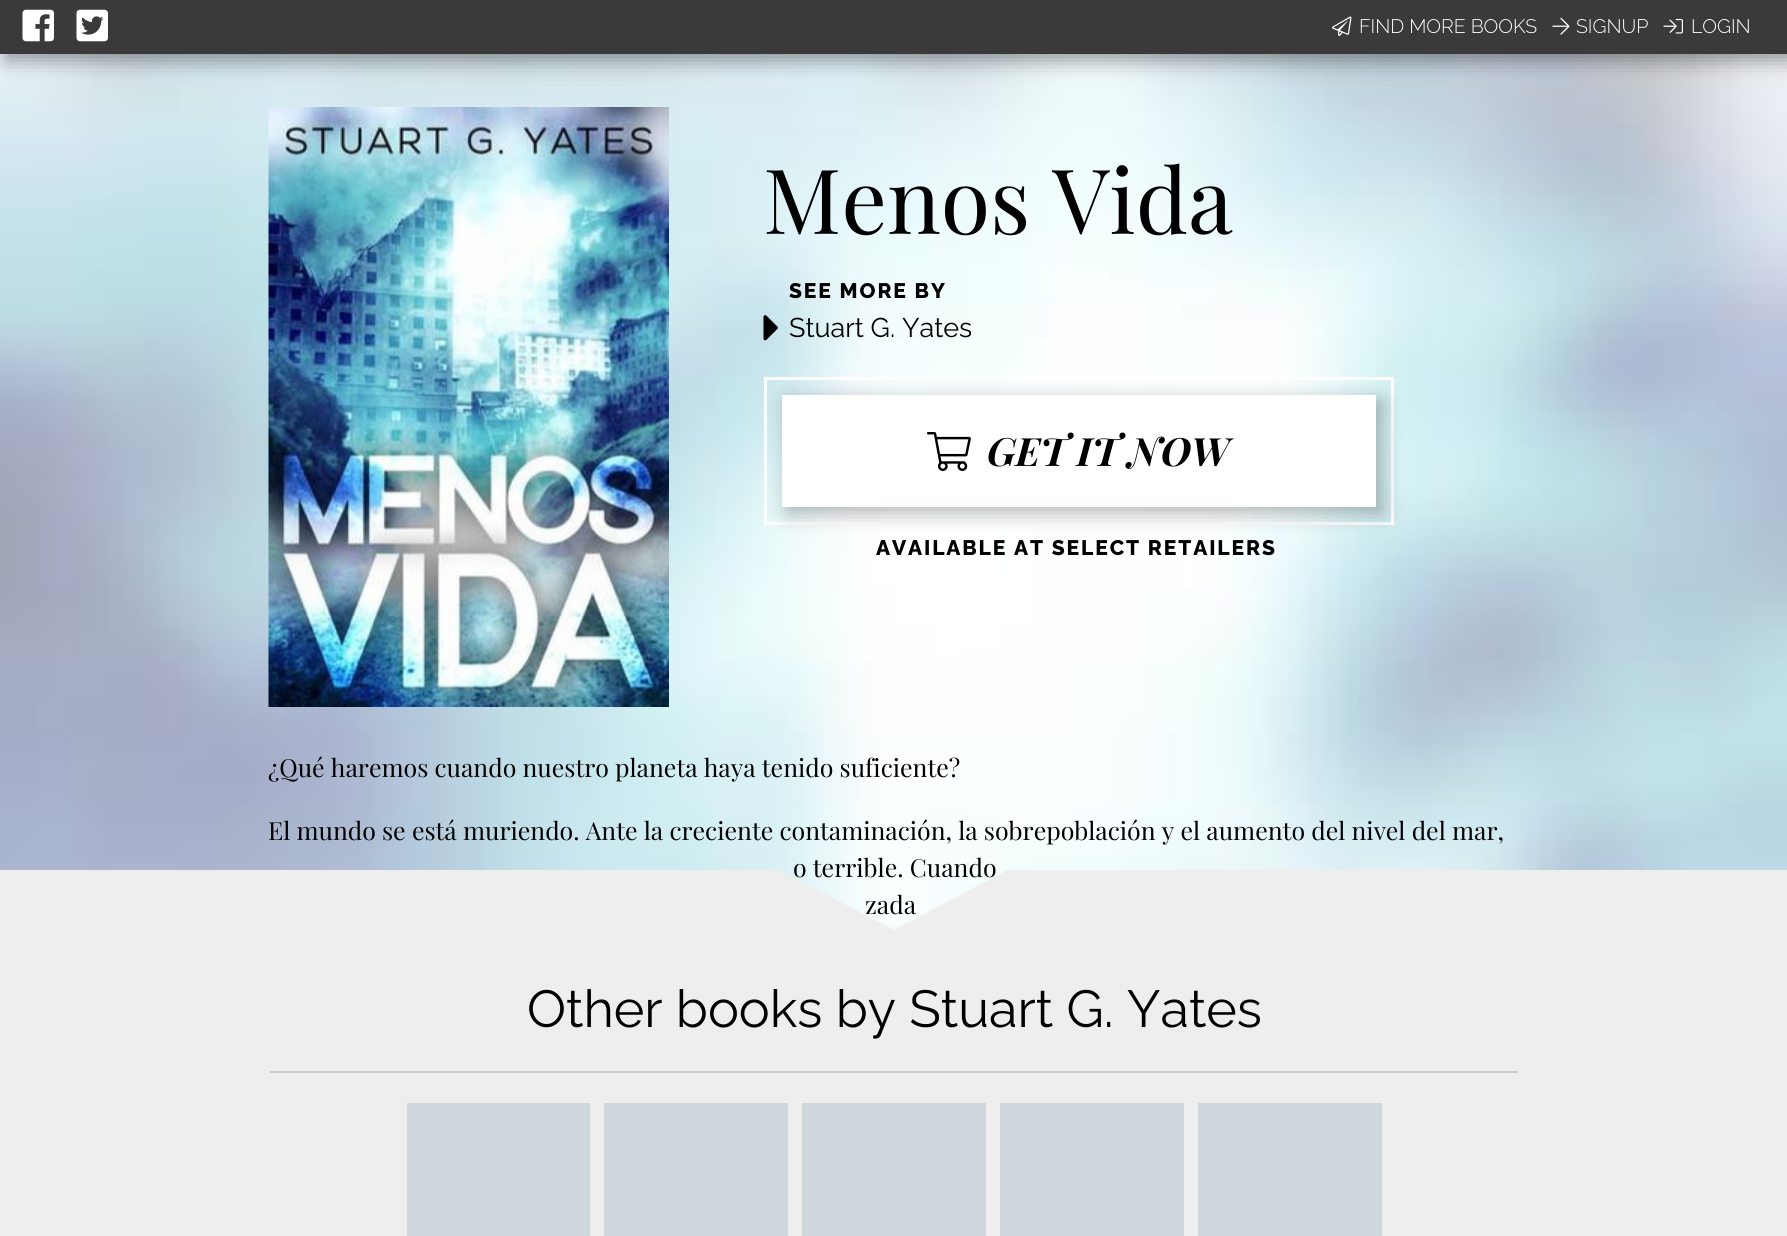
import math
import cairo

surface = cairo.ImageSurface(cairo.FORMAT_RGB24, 1787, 1236)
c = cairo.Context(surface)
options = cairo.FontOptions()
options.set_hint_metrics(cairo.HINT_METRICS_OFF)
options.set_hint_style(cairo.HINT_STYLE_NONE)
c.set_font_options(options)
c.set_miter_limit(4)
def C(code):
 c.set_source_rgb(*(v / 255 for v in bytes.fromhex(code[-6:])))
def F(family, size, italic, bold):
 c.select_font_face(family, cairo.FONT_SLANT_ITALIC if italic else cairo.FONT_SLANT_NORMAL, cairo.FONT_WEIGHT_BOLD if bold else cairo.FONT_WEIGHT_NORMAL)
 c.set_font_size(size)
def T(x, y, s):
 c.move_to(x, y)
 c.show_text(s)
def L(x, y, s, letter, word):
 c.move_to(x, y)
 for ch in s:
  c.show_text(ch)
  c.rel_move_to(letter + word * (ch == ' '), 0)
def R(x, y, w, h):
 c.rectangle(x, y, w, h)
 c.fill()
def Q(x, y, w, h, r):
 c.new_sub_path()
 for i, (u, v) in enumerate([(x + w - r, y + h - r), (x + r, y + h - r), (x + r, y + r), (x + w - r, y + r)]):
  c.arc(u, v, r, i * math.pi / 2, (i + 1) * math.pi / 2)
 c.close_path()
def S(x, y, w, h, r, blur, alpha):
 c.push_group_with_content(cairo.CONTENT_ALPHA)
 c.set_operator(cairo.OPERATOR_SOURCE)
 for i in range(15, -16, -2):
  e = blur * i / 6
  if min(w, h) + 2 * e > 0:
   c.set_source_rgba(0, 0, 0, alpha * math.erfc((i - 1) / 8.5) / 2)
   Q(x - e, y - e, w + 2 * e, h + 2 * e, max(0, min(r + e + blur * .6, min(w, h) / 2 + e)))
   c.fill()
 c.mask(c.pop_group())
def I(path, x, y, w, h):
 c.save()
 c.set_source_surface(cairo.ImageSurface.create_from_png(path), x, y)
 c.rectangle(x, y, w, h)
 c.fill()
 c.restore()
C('ffffff')
c.paint()
I('1.png',0,54,1787,877)
C('000000')
S(6,6,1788,54,0,10.5,.4)
C('3a3a3a')
R(0,0,1787,54)
I('2.png',22,9,32,33)
I('3.png',76,9,32,33)
I('4.png',1332,16,20,20)
F('Raleway Light',19.5,0,0)
C('ffffff')
T(1359,33,'FIND MORE BOOKS')
I('5.png',1552,17,18,18)
T(1576,33,'SIGNUP')
I('6.png',1663,18,20,16)
T(1691,33,'LOGIN')
I('7.png',268,107,401,600)
F('Playfair Display',90,0,0)
C('000000')
T(763,234,'Menos Vida')
I('8.png',763,315,15,26)
F('Raleway ExtraBold',21,0,0)
L(789,298,'SEE MORE BY',1.9,0)
F('Raleway',27,0,0)
T(789,337,'Stuart G. Yates')
c.rectangle(765.5,378.5,627,145)
C('ffffff')
c.set_line_width(3)
c.stroke()
C('000000')
S(788,401,594,112,0,10.5,.3)
C('ffffff')
R(782,395,594,112)
I('9.png',927,432,44,39)
F('Playfair Display',39,1,1)
C('000000')
T(987,466,'GET IT NOW')
F('Raleway ExtraBold',21,0,0)
L(876,555,'AVAILABLE AT SELECT RETAILERS',1.9,0)
F('Playfair Display',24.85,0,0)
T(268,777,'¿Qué haremos cuando nuestro planeta haya tenido suficiente?')
T(268,840,'El mundo se está muriendo. Ante la creciente contaminación, la sobrepoblación y el aumento del nivel del mar,')
T(793,877,'o terrible. Cuando')
T(865,914,'zada')
C('eeeeee')
R(0,870,780,62)
I('10.png',780,870,228,62)
R(1008,870,779,62)
R(0,932,1787,304)
F('Raleway',52,0,0)
C('000000')
T(527,1027,'Other books by Stuart G. Yates')
C('cccccc')
R(270,1071,1248,2)
C('cfd8dc')
R(407,1103,183,133)
R(604,1103,184,133)
R(802,1103,184,133)
R(1000,1103,184,133)
R(1198,1103,184,133)
surface.write_to_png('o.png')
